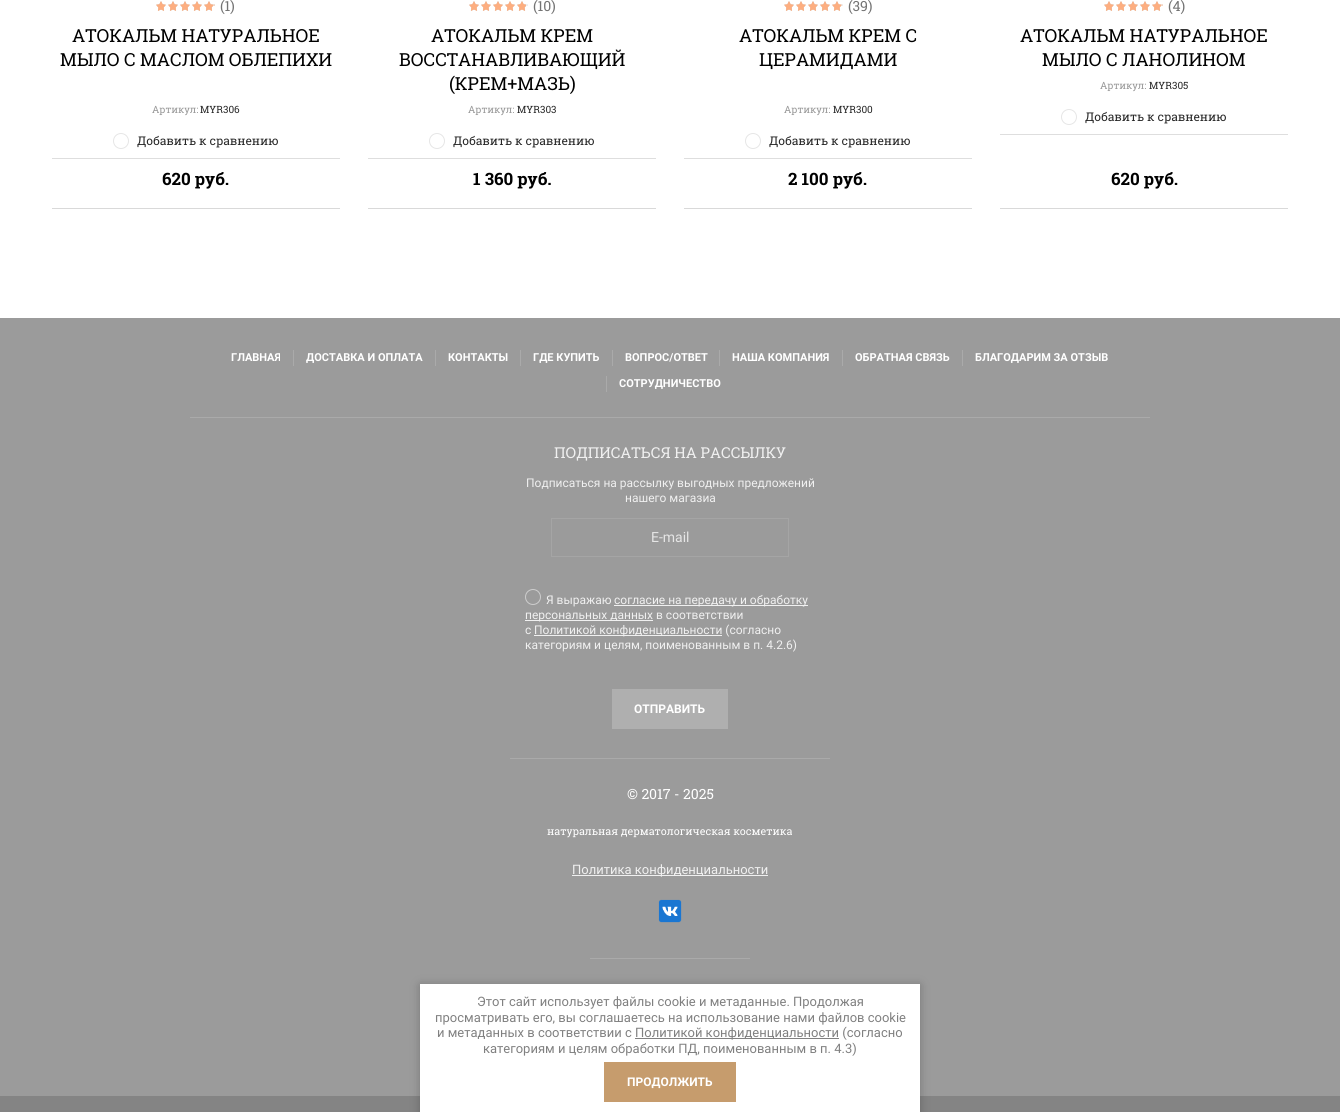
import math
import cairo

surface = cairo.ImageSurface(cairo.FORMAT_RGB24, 1340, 1112)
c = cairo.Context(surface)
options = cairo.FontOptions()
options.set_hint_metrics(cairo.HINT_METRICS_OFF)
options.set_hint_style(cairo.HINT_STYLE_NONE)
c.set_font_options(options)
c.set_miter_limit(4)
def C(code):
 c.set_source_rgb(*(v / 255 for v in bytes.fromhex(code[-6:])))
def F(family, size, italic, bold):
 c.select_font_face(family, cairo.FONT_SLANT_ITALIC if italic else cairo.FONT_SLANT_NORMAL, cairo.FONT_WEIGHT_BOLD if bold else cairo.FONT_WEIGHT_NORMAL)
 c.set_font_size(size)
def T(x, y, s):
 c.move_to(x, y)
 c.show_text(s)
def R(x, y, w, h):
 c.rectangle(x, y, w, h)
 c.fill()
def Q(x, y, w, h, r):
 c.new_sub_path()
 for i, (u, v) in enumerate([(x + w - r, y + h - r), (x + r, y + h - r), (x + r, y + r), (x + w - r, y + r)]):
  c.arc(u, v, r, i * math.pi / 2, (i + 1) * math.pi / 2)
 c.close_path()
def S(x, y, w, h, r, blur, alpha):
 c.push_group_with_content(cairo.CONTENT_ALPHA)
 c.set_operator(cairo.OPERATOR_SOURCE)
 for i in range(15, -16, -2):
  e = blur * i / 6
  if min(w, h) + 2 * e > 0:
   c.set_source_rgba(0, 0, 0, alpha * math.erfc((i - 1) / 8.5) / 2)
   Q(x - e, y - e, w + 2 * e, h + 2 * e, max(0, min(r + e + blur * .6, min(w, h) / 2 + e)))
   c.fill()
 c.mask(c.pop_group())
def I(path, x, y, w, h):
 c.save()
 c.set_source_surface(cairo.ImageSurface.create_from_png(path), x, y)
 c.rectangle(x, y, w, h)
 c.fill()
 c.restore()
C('ffffff')
c.paint()
C('d9d9d9')
R(52,208,288,1)
I('1.png',156,1,59,10)
I('2.png',156,1,59,10)
F('Roboto Slab',14,0,0)
C('737373')
T(220,11,'(1)')
F('Roboto Slab',18,0,0)
C('000000')
T(72,42,'АТОКАЛЬМ НАТУРАЛЬНОЕ')
T(60,66,'МЫЛО С МАСЛОМ ОБЛЕПИХИ')
F('Roboto Slab',10,0,0)
C('999999')
T(152,113,'Артикул:')
C('262626')
T(200,113,'MYR306')
C('dedede')
R(52,158,288,1)
c.new_path()
c.arc(121,141,7.5,0,2 * math.pi)
C('e6e6e6')
c.set_line_width(1)
c.stroke()
F('Roboto Slab',12,0,0)
C('262626')
T(137,145,'Добавить к сравнению')
F('Roboto Slab',17,0,1)
C('000000')
T(162,185,'620 руб.')
C('d9d9d9')
R(368,208,288,1)
I('1.png',469,1,59,10)
I('3.png',469,1,57,10)
F('Roboto Slab',14,0,0)
C('737373')
T(533,11,'(10)')
F('Roboto Slab',18,0,0)
C('000000')
T(431,42,'АТОКАЛЬМ КРЕМ')
T(399,66,'ВОССТАНАВЛИВАЮЩИЙ')
T(449,90,'(КРЕМ+МАЗЬ)')
F('Roboto Slab',10,0,0)
C('999999')
T(468,113,'Артикул:')
C('262626')
T(517,113,'MYR303')
C('dedede')
R(368,158,288,1)
c.new_path()
c.arc(437,141,7.5,0,2 * math.pi)
C('e6e6e6')
c.stroke()
F('Roboto Slab',12,0,0)
C('262626')
T(453,145,'Добавить к сравнению')
F('Roboto Slab',17,0,1)
C('000000')
T(473,185,'1 360 руб.')
C('d9d9d9')
R(684,208,288,1)
I('1.png',784,1,59,10)
I('4.png',784,1,58,10)
F('Roboto Slab',14,0,0)
C('737373')
T(848,11,'(39)')
F('Roboto Slab',18,0,0)
C('000000')
T(739,42,'АТОКАЛЬМ КРЕМ С')
T(759,66,'ЦЕРАМИДАМИ')
F('Roboto Slab',10,0,0)
C('999999')
T(784,113,'Артикул:')
C('262626')
T(833,113,'MYR300')
C('dedede')
R(684,158,288,1)
c.new_path()
c.arc(753,141,7.5,0,2 * math.pi)
C('e6e6e6')
c.stroke()
F('Roboto Slab',12,0,0)
C('262626')
T(769,145,'Добавить к сравнению')
F('Roboto Slab',17,0,1)
C('000000')
T(788,185,'2 100 руб.')
C('d9d9d9')
R(1000,208,288,1)
I('1.png',1104,1,59,10)
I('2.png',1104,1,59,10)
F('Roboto Slab',14,0,0)
C('737373')
T(1168,11,'(4)')
F('Roboto Slab',18,0,0)
C('000000')
T(1020,42,'АТОКАЛЬМ НАТУРАЛЬНОЕ')
T(1042,66,'МЫЛО С ЛАНОЛИНОМ')
F('Roboto Slab',10,0,0)
C('999999')
T(1100,89,'Артикул:')
C('262626')
T(1149,89,'MYR305')
C('dedede')
R(1000,134,288,1)
c.new_path()
c.arc(1069,117,7.5,0,2 * math.pi)
C('e6e6e6')
c.stroke()
F('Roboto Slab',12,0,0)
C('262626')
T(1085,121,'Добавить к сравнению')
F('Roboto Slab',17,0,1)
C('000000')
T(1111,185,'620 руб.')
C('9b9b9b')
R(0,318,1340,778)
C('848484')
R(0,1096,1340,16)
C('aaaaaa')
R(190,417,960,1)
F('Roboto',11,0,1)
C('ffffff')
T(231,361,'ГЛАВНАЯ')
C('aaaaaa')
R(293,350,1,16)
C('ffffff')
T(306,361,'ДОСТАВКА И ОПЛАТА')
C('aaaaaa')
R(435,350,1,16)
C('ffffff')
T(448,361,'КОНТАКТЫ')
C('aaaaaa')
R(520,350,1,16)
C('ffffff')
T(533,361,'ГДЕ КУПИТЬ')
C('aaaaaa')
R(612,350,1,16)
C('ffffff')
T(625,361,'ВОПРОС/ОТВЕТ')
C('aaaaaa')
R(719,350,1,16)
C('ffffff')
T(732,361,'НАША КОМПАНИЯ')
C('aaaaaa')
R(842,350,1,16)
C('ffffff')
T(855,361,'ОБРАТНАЯ СВЯЗЬ')
C('aaaaaa')
R(962,350,1,16)
C('ffffff')
T(975,361,'БЛАГОДАРИМ ЗА ОТЗЫВ')
C('aaaaaa')
R(606,376,1,16)
C('ffffff')
T(619,387,'CОТРУДНИЧЕСТВО')
F('Roboto Slab',15,0,0)
C('f0f0f0')
T(554,458,'ПОДПИСАТЬСЯ НА РАССЫЛКУ')
F('Roboto',12,0,0)
T(526,487,'Подписаться на рассылку выгодных предложений')
T(625,502,'нашего магазиа')
c.rectangle(551.5,518.5,237,38)
C('a5a5a5')
c.stroke()
F('Roboto',14,0,0)
C('e6e6e6')
T(651,542,'E-mail')
c.new_path()
c.arc(533,597,7.5,0,2 * math.pi)
C('cdcdcd')
c.stroke()
F('Roboto',12,0,0)
C('f0f0f0')
T(546,604,'Я выражаю')
R(614,605,194,1)
T(614,604,'согласие на передачу и обработку')
R(525,620,128,1)
T(525,619,'персональных данных в соответствии')
T(525,634,'с')
R(534,635,188,1)
T(534,634,'Политикой конфиденциальности (согласно')
T(525,649,'категориям и целям, поименованным в п. 4.2.6)')
C('afafaf')
R(612,689,116,40)
F('Roboto',12,0,1)
C('ffffff')
T(634,713,'ОТПРАВИТЬ')
C('aaaaaa')
R(510,758,320,1)
F('Roboto Slab',14,0,0)
C('ffffff')
T(627,799,'© 2017 - 2025')
F('Roboto Slab',10.7,0,0)
T(547,835,'натуральная дерматологическая косметика')
C('f0f0f0')
R(572,875,196,1)
F('Roboto',13,0,0)
T(572,874,'Политика конфиденциальности')
C('aaaaaa')
R(590,958,160,1)
I('5.png',658,899,24,24)
C('000000')
S(420,985,500,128,0,5,.23)
C('ffffff')
R(420,984,500,128)
C('808080')
T(477,1006,'Этот сайт использует файлы cookie и метаданные. Продолжая')
T(435,1022,'просматривать его, вы соглашаетесь на использование нами файлов cookie')
T(437,1037,'и метаданных в соответствии с')
R(635,1038,204,1)
T(635,1037,'Политикой конфиденциальности (согласно')
T(483,1053,'категориям и целям обработки ПД, поименованным в п. 4.3)')
C('c69c6d')
R(604,1062,132,40)
F('Roboto',12,0,1)
C('ffffff')
T(627,1086,'ПРОДОЛЖИТЬ')
surface.write_to_png('o.png')
